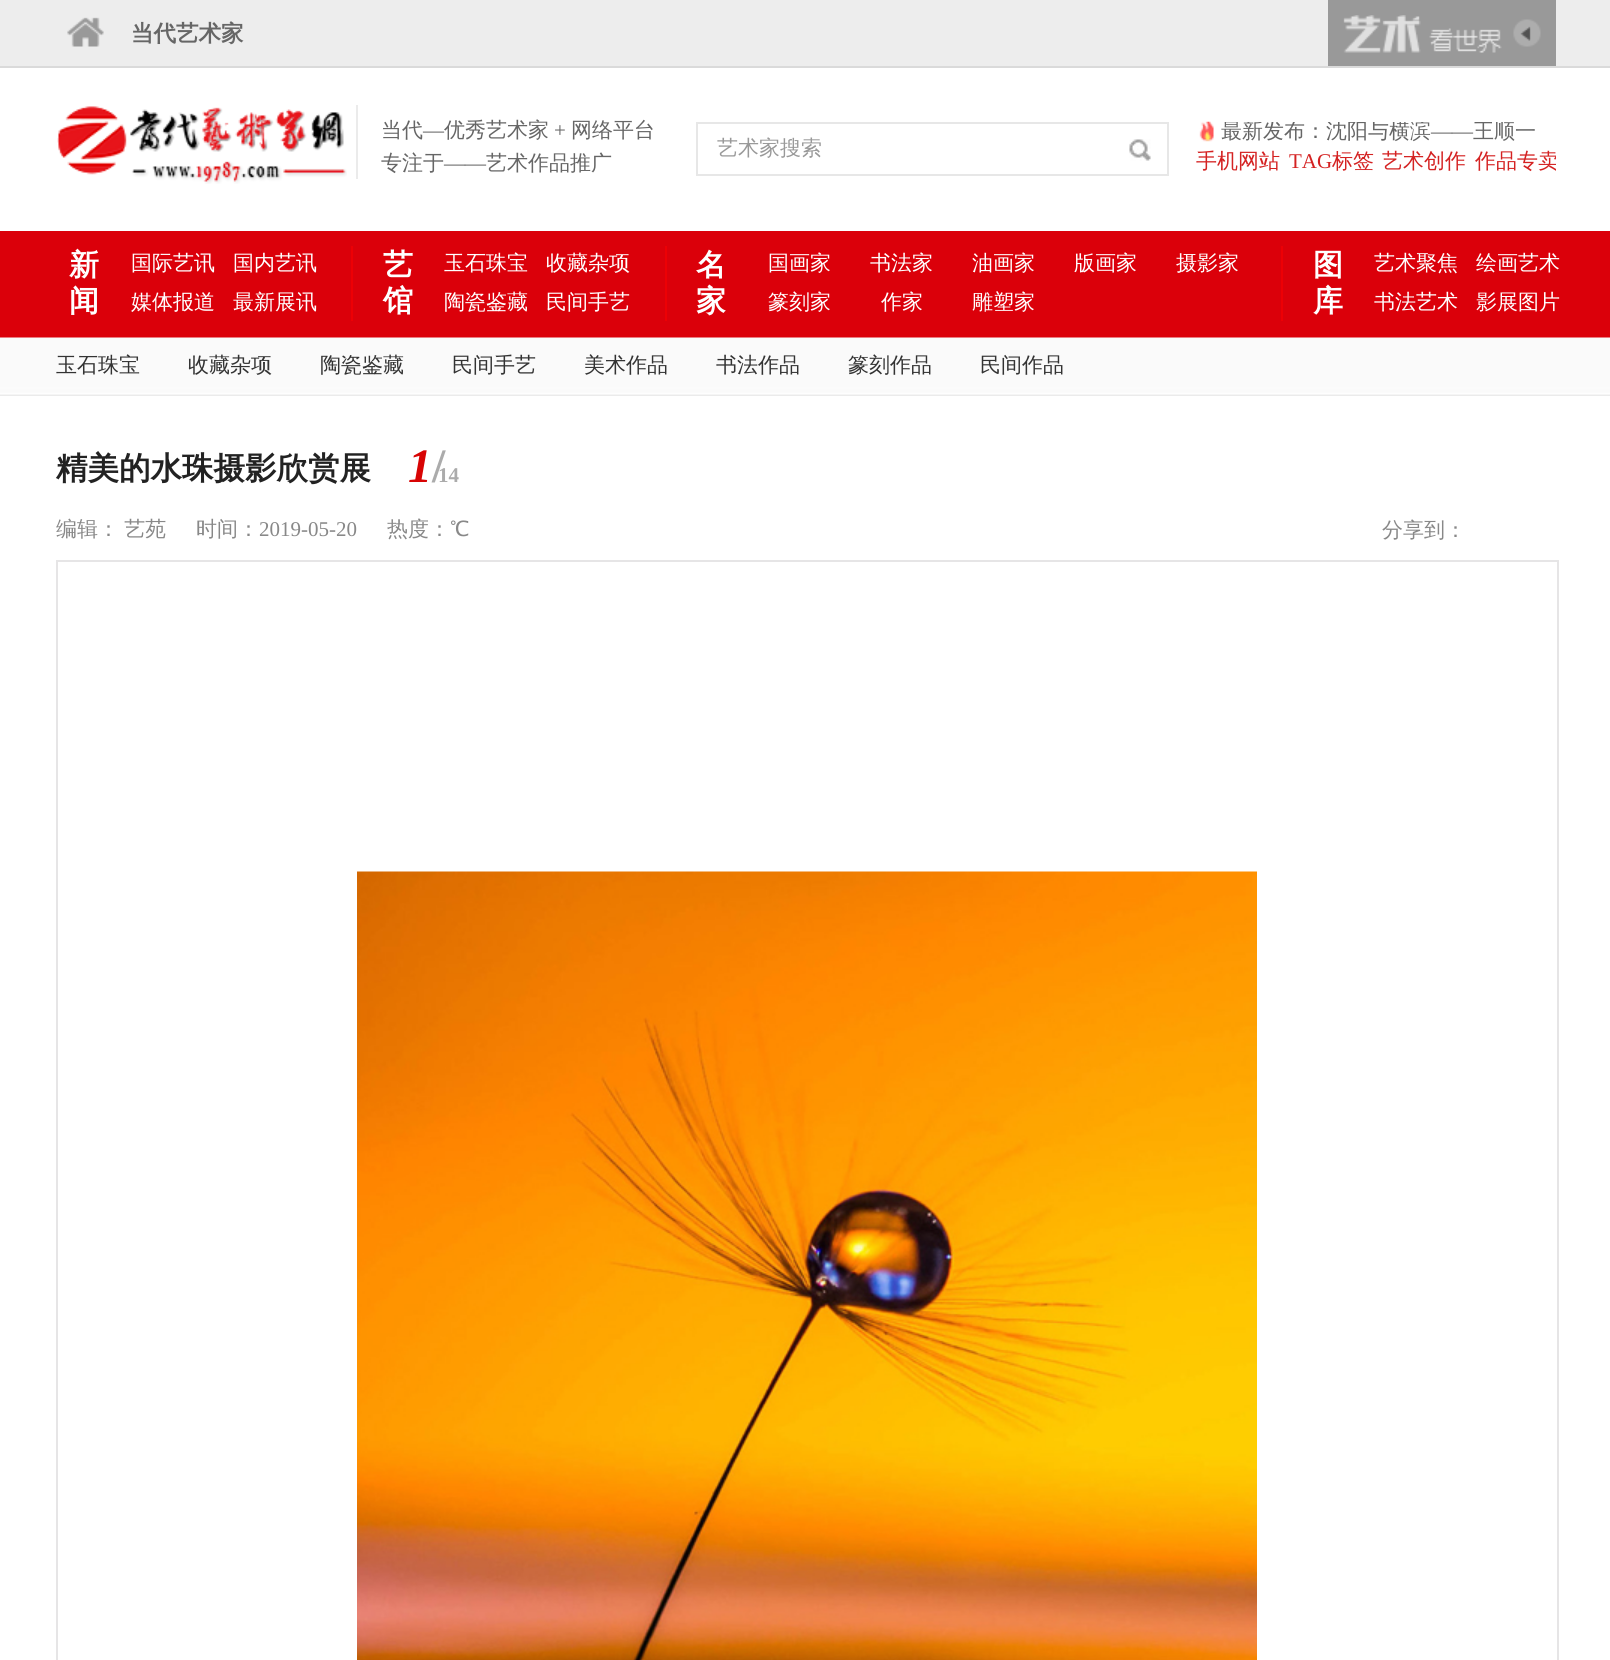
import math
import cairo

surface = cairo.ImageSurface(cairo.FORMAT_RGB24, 1610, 1660)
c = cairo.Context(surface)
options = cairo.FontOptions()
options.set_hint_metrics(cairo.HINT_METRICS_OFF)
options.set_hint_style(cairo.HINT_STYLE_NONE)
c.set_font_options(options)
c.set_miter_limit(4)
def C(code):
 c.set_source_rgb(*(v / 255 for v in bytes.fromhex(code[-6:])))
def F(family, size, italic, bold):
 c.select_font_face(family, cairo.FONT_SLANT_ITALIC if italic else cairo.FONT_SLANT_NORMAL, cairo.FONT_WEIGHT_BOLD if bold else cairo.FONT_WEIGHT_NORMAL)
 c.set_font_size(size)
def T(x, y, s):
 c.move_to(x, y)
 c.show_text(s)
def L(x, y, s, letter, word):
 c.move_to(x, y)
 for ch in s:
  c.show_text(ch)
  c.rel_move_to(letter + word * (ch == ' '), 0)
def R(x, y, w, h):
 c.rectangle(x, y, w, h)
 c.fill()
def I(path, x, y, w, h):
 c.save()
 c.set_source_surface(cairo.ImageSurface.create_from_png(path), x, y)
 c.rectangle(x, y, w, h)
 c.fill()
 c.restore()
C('ffffff')
c.paint()
C('ededed')
R(0,0,1610,66)
C('dadada')
R(0,66,1610,2)
I('1.png',67,17,37,30)
F('WenQuanYi Zen Hei',22.5,0,1)
C('666666')
T(131,41,'当代艺术家')
C('999999')
R(1328,0,228,66)
I('2.png',1343,15,159,38)
I('3.png',1513,19,28,28)
I('4.png',57,106,290,78)
C('ebebeb')
R(356,105,2,74)
F('WenQuanYi Zen Hei Medium',21,0,0)
C('666666')
T(381,137,'当代')
F('Liberation Serif',21,0,0)
T(423,137,'—')
F('WenQuanYi Zen Hei Medium',21,0,0)
T(444,137,'优秀艺术家')
F('Liberation Serif',21,0,0)
T(554,137,'+')
F('WenQuanYi Zen Hei Medium',21,0,0)
T(571,137,'网络平台')
T(381,170,'专注于')
F('Liberation Serif',21,0,0)
T(444,170,'——')
F('WenQuanYi Zen Hei Medium',21,0,0)
T(486,170,'艺术作品推广')
c.rectangle(697,123,471,52)
C('e7e7e7')
c.stroke()
C('999999')
T(717,155,'艺术家搜索')
I('5.png',1129,139,22,22)
I('6.png',1199,121,15,21)
c.save()
c.rectangle(1221,122,327,21)
c.clip()
C('666666')
T(1221,138,'最新发布：沈阳与横滨')
c.restore()
F('Liberation Serif',21,0,0)
C('666666')
T(1431,138,'——')
c.save()
c.rectangle(1221,122,327,21)
c.clip()
F('WenQuanYi Zen Hei Medium',21,0,0)
T(1473,138,'王顺一')
c.restore()
F('WenQuanYi Zen Hei Medium',21,0,0)
C('d42222')
T(1196,168,'手机网站')
F('Liberation Serif',21,0,0)
T(1289,168,'TAG')
F('WenQuanYi Zen Hei Medium',21,0,0)
T(1332,168,'标签')
T(1382,168,'艺术创作')
c.save()
c.rectangle(1196,143,360,36)
c.clip()
T(1475,168,'作品专卖')
c.restore()
I('7.png',0,231,1610,165)
F('WenQuanYi Zen Hei',30,0,1)
C('ffffff')
T(69,275,'新')
T(69,311,'闻')
F('WenQuanYi Zen Hei Medium',21,0,0)
T(131,270,'国际艺讯')
T(233,270,'国内艺讯')
T(131,309,'媒体报道')
T(233,309,'最新展讯')
C('ed0005')
R(351,246,2,75)
F('WenQuanYi Zen Hei',30,0,1)
C('ffffff')
T(383,275,'艺')
T(383,311,'馆')
F('WenQuanYi Zen Hei Medium',21,0,0)
T(444,270,'玉石珠宝')
T(546,270,'收藏杂项')
T(444,309,'陶瓷鉴藏')
T(546,309,'民间手艺')
C('ed0005')
R(665,246,2,75)
F('WenQuanYi Zen Hei',30,0,1)
C('ffffff')
T(696,275,'名')
T(696,311,'家')
F('WenQuanYi Zen Hei Medium',21,0,0)
T(768,270,'国画家')
T(870,270,'书法家')
T(972,270,'油画家')
T(1074,270,'版画家')
T(1176,270,'摄影家')
T(768,309,'篆刻家')
T(881,309,'作家')
T(972,309,'雕塑家')
C('ed0005')
R(1281,246,2,75)
F('WenQuanYi Zen Hei',30,0,1)
C('ffffff')
T(1313,275,'图')
T(1313,311,'库')
F('WenQuanYi Zen Hei Medium',21,0,0)
T(1374,270,'艺术聚焦')
T(1476,270,'绘画艺术')
T(1374,309,'书法艺术')
T(1476,309,'影展图片')
C('333333')
T(56,372,'玉石珠宝')
T(188,372,'收藏杂项')
T(320,372,'陶瓷鉴藏')
T(452,372,'民间手艺')
T(584,372,'美术作品')
T(716,372,'书法作品')
T(848,372,'篆刻作品')
T(980,372,'民间作品')
F('WenQuanYi Zen Hei',31.5,0,1)
C('222222')
T(56,479,'精美的水珠摄影欣赏展')
F('Liberation Serif',48,1,1)
C('d80404')
T(408,482,'1')
F('Liberation Serif',48,0,1)
C('ababab')
T(432,482,'/')
F('Liberation Serif',21,0,1)
T(438,482,'14')
F('WenQuanYi Zen Hei Medium',21,0,0)
C('888888')
L(56,536,'编辑： 艺苑',0,-1)
T(196,536,'时间：')
F('Liberation Serif',21,0,0)
T(259,536,'2019-05-20')
F('WenQuanYi Zen Hei Medium',21,0,0)
T(387,536,'热度：℃')
T(1382,537,'分享到：')
c.rectangle(57,561,1501,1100)
C('e6e5e6')
c.stroke()
I('8.png',357,871,900,789)
surface.write_to_png('o.png')
